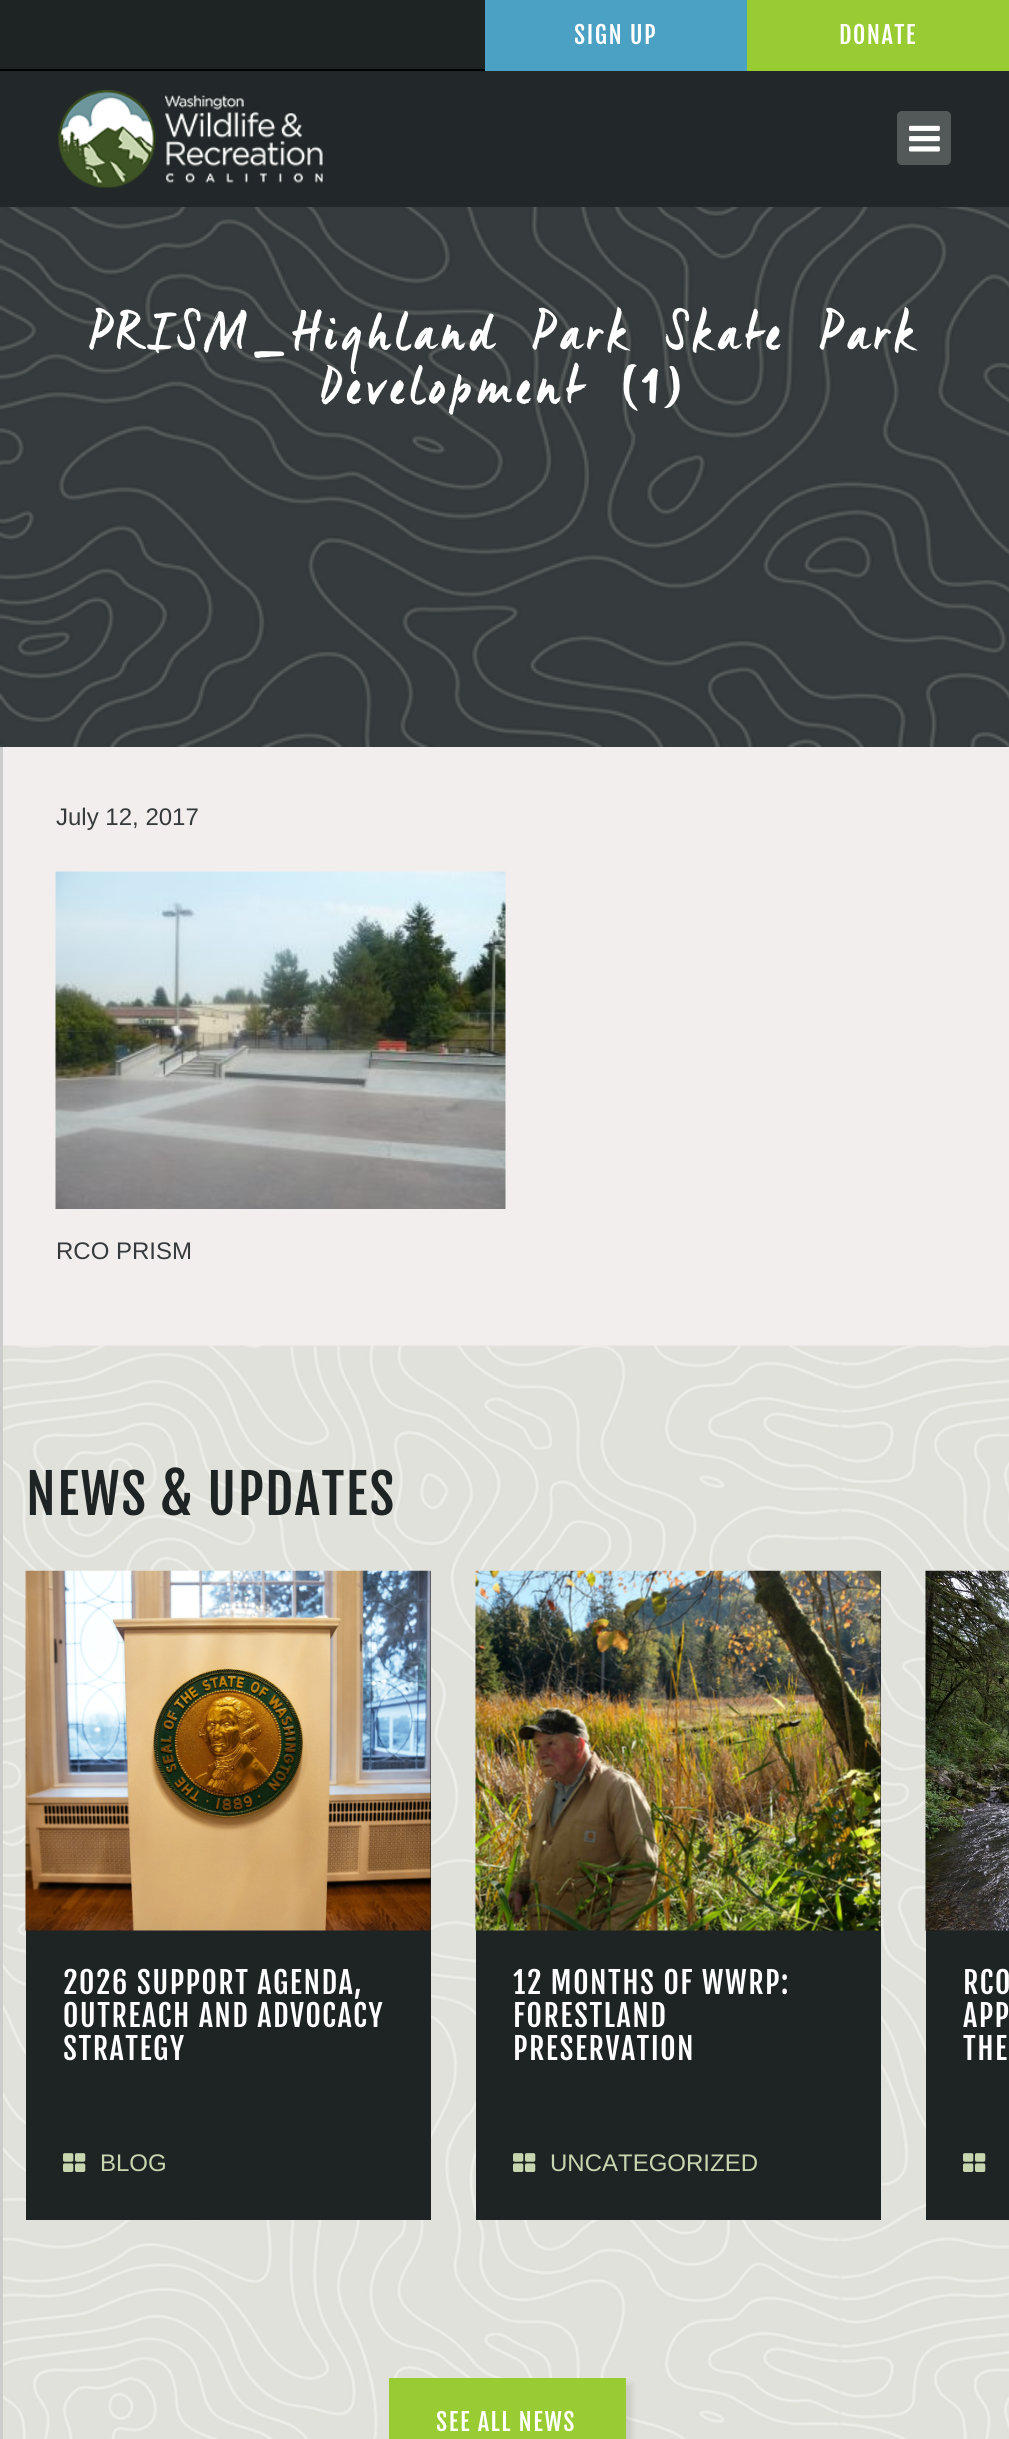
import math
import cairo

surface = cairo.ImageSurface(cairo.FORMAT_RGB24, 1009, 2439)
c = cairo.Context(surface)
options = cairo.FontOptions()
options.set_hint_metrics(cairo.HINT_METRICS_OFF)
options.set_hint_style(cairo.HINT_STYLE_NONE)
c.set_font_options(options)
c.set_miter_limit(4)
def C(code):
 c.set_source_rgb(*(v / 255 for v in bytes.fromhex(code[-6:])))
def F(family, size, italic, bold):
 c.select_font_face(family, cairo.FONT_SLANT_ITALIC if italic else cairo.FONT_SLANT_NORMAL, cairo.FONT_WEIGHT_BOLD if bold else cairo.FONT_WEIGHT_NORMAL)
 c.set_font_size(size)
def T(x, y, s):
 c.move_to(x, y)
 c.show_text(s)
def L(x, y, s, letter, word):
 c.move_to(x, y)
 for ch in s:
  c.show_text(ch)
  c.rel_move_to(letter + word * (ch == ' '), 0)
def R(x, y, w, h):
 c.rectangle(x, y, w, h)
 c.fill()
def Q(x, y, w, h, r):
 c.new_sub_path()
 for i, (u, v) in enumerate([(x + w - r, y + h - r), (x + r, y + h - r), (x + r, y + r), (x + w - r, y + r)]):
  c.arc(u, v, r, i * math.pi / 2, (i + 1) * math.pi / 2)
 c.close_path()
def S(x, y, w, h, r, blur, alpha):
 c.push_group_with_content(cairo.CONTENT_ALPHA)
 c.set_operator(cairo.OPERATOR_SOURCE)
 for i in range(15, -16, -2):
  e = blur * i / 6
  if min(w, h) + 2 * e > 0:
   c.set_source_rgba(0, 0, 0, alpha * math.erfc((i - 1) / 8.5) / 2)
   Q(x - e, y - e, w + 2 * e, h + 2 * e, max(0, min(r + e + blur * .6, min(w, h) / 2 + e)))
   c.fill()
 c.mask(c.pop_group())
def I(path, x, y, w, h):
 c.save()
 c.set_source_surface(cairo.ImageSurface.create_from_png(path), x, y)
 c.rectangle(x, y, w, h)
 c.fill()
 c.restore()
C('f2eeed')
c.paint()
C('1e2324')
R(0,0,485,69)
C('000000')
R(0,69,485,2)
C('4ba1c3')
R(485,0,262,71)
F('Fjalla One',24,0,0)
C('ffffff')
L(574,44,'SIGN UP',1.5,0)
C('99cc33')
R(747,0,262,71)
C('ffffff')
L(839,44,'DONATE',1.5,0)
C('222829')
R(0,71,1009,136)
I('1.png',58,90,265,98)
C('535858')
Q(897,111,54,54,5)
c.fill()
I('2.png',909,125,31,27)
I('3.png',0,207,1009,540)
F('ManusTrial',54,0,0)
C('ffffff')
L(89,349,'PRISM',6,0)
F('Caveat Brush',54,0,0)
L(252,349,'_',6,0)
F('ManusTrial',54,0,0)
L(292,349,'Highland Park Skate Park',6,0)
L(321,403,'Development',6,0)
F('Caveat Brush',54,0,0)
L(620,403,'(1)',6,0)
C('cccccc')
R(0,747,3,1692)
F('Arimo',24,0,0)
C('373a3c')
T(56,825,'July 12, 2017')
I('4.png',55,871,451,338)
T(56,1259,'RCO PRISM')
I('5.png',3,1345,1006,1094)
F('Fjalla One',54,0,0)
C('1e2324')
L(26,1515,'NEWS & UPDATES',1.5,0)
R(26,1571,405,649)
I('6.png',25,1570,406,361)
F('Fjalla One',30,0,0)
C('ffffff')
L(63,1994,'2026 SUPPORT AGENDA,',1.5,0)
L(63,2027,'OUTREACH AND ADVOCACY',1.5,0)
L(63,2060,'STRATEGY',1.5,0)
I('7.png',63,2153,23,19)
F('Arimo',24,0,0)
C('c7d6af')
T(100,2171,'BLOG')
C('1e2324')
R(476,1571,405,649)
I('8.png',475,1570,406,361)
F('Fjalla One',30,0,0)
C('ffffff')
L(513,1994,'12 MONTHS OF WWRP:',1.5,0)
L(513,2027,'FORESTLAND',1.5,0)
L(513,2060,'PRESERVATION',1.5,0)
I('7.png',513,2153,23,19)
F('Arimo',24,0,0)
C('c7d6af')
T(550,2171,'UNCATEGORIZED')
C('1e2324')
R(926,1930,83,290)
I('9.png',925,1570,84,361)
F('Fjalla One',30,0,0)
C('ffffff')
L(963,1994,'RCO',1.5,0)
L(963,2027,'APP',1.5,0)
L(963,2060,'THE',1.5,0)
I('7.png',963,2153,23,19)
C('000000')
S(395,2384,237,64,0,3,.1)
C('99cc33')
R(389,2378,237,61)
F('Fjalla One',24,0,0)
C('ffffff')
L(436,2431,'SEE ALL NEWS',1.5,0)
surface.write_to_png('o.png')
